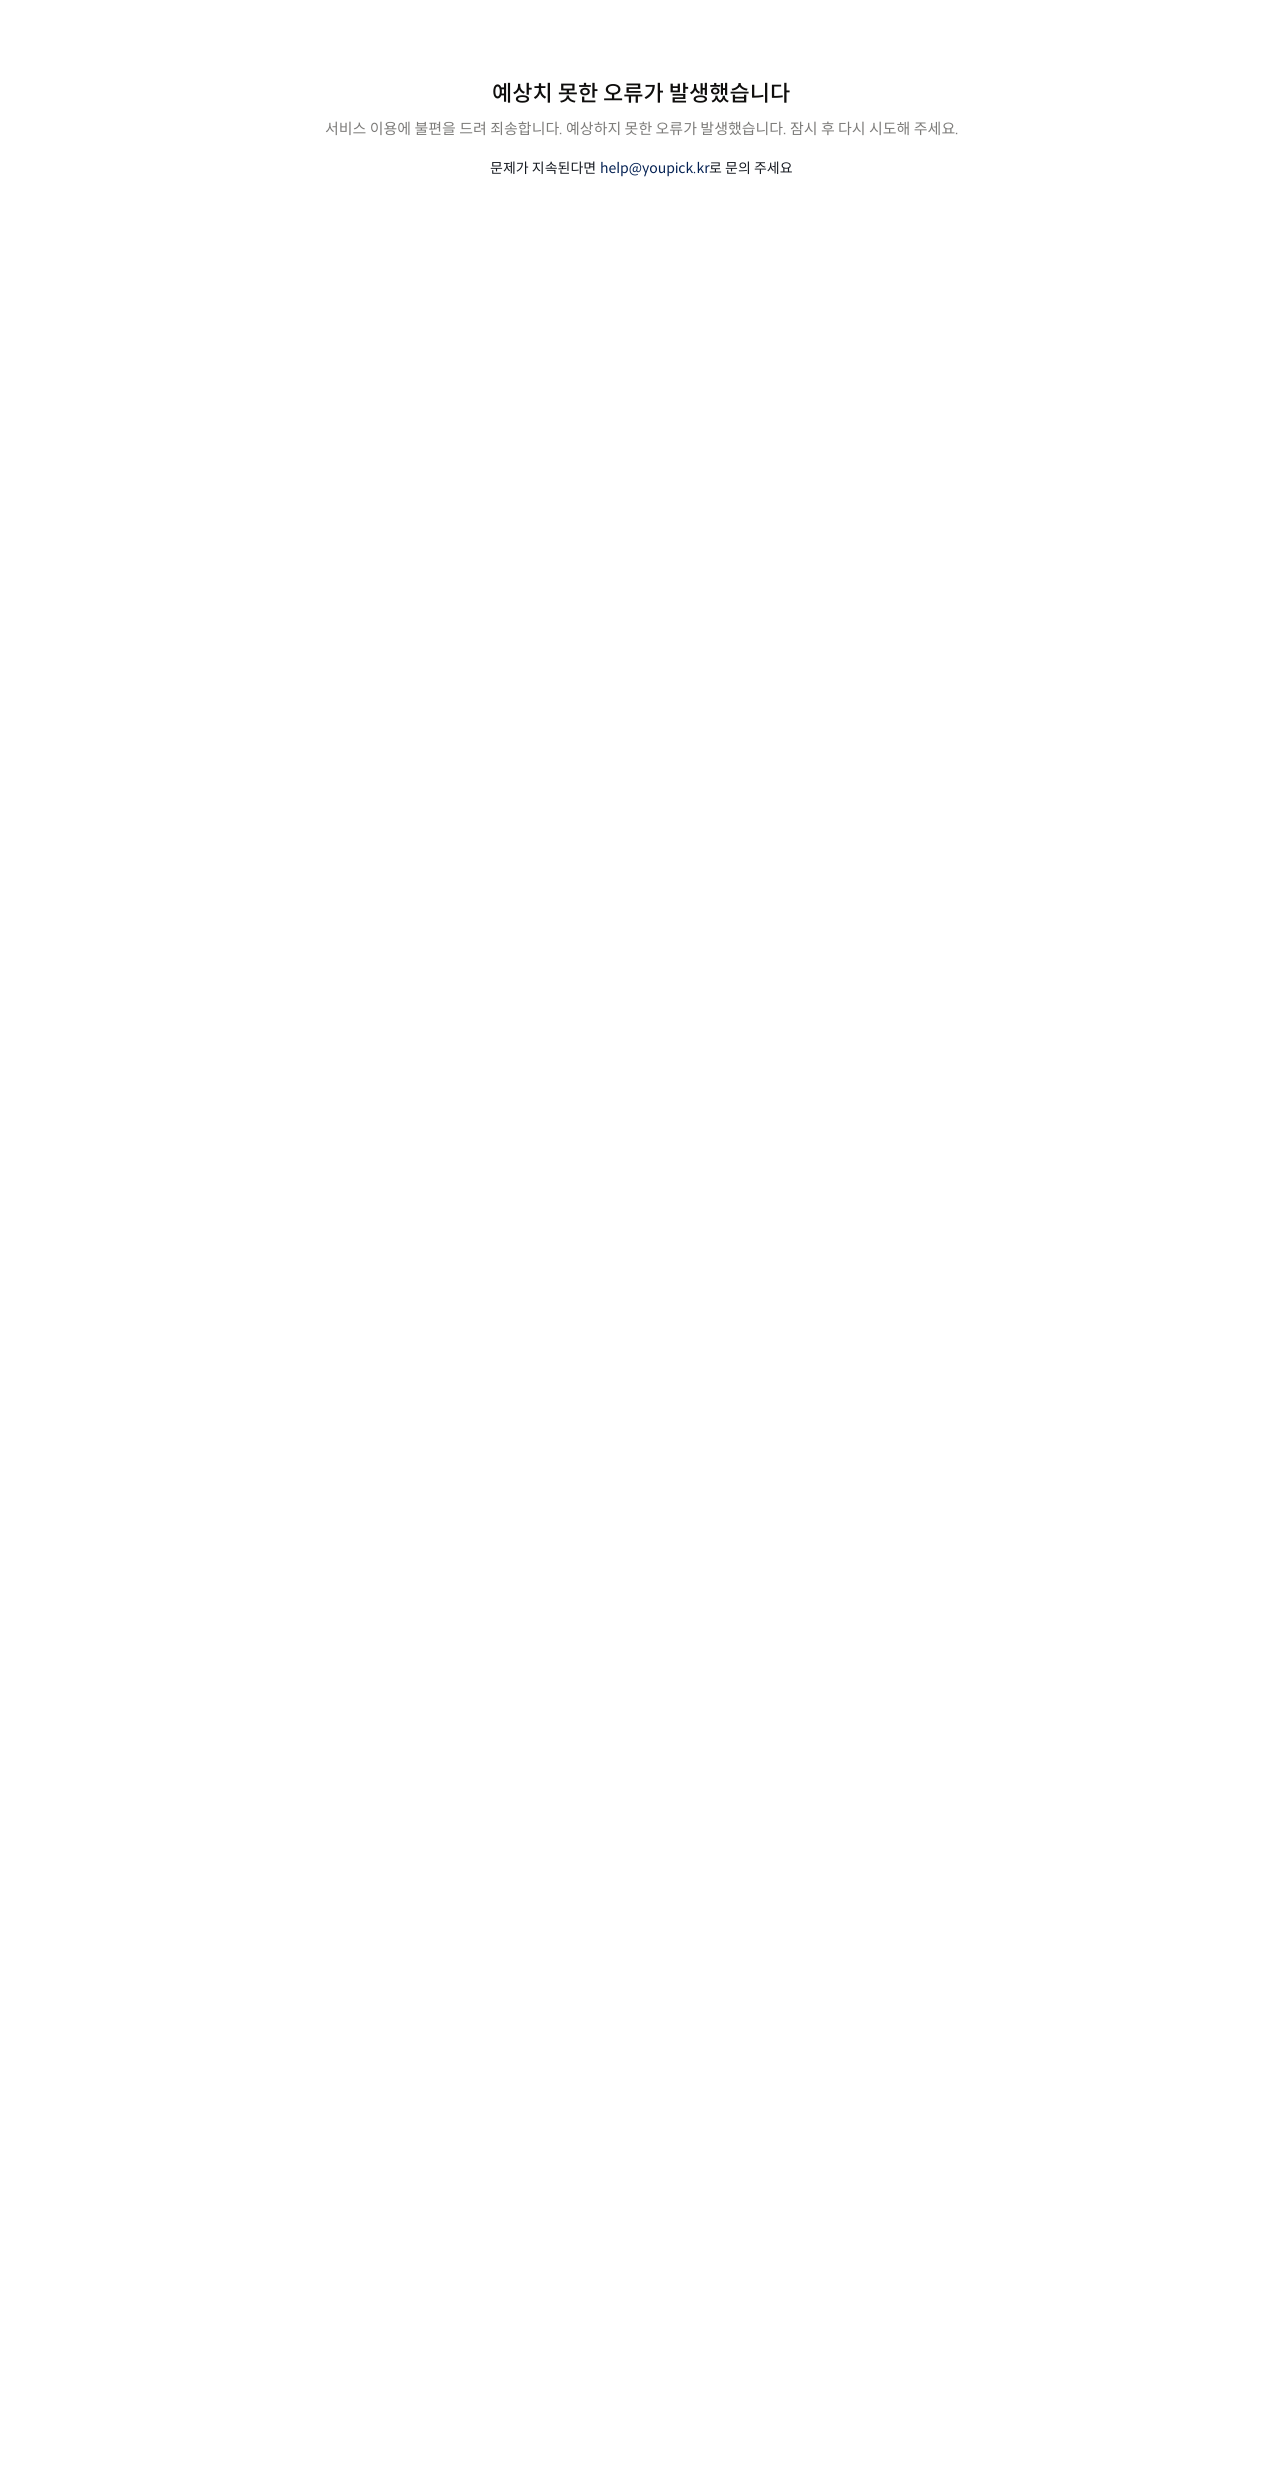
import math
import cairo

surface = cairo.ImageSurface(cairo.FORMAT_RGB24, 1283, 2492)
c = cairo.Context(surface)
options = cairo.FontOptions()
options.set_hint_metrics(cairo.HINT_METRICS_OFF)
options.set_hint_style(cairo.HINT_STYLE_NONE)
c.set_font_options(options)
c.set_miter_limit(4)
def C(code):
 c.set_source_rgb(*(v / 255 for v in bytes.fromhex(code[-6:])))
def F(family, size, italic, bold):
 c.select_font_face(family, cairo.FONT_SLANT_ITALIC if italic else cairo.FONT_SLANT_NORMAL, cairo.FONT_WEIGHT_BOLD if bold else cairo.FONT_WEIGHT_NORMAL)
 c.set_font_size(size)
def T(x, y, s):
 c.move_to(x, y)
 c.show_text(s)
C('ffffff')
c.paint()
F('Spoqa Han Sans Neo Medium',22,0,0)
C('0e0d0c')
T(492,101,'예상치 못한 오류가 발생했습니다')
F('Spoqa Han Sans Neo',15,0,0)
C('7c7b79')
T(325,134,'서비스 이용에 불편을 드려 죄송합니다. 예상하지 못한 오류가 발생했습니다. 잠시 후 다시 시도해 주세요.')
F('Spoqa Han Sans Neo',14,0,0)
C('14181f')
T(490,173,'문제가 지속된다면')
C('042153')
T(600,173,'help@youpick.kr')
C('14181f')
T(709,173,'로 문의 주세요')
surface.write_to_png('o.png')
